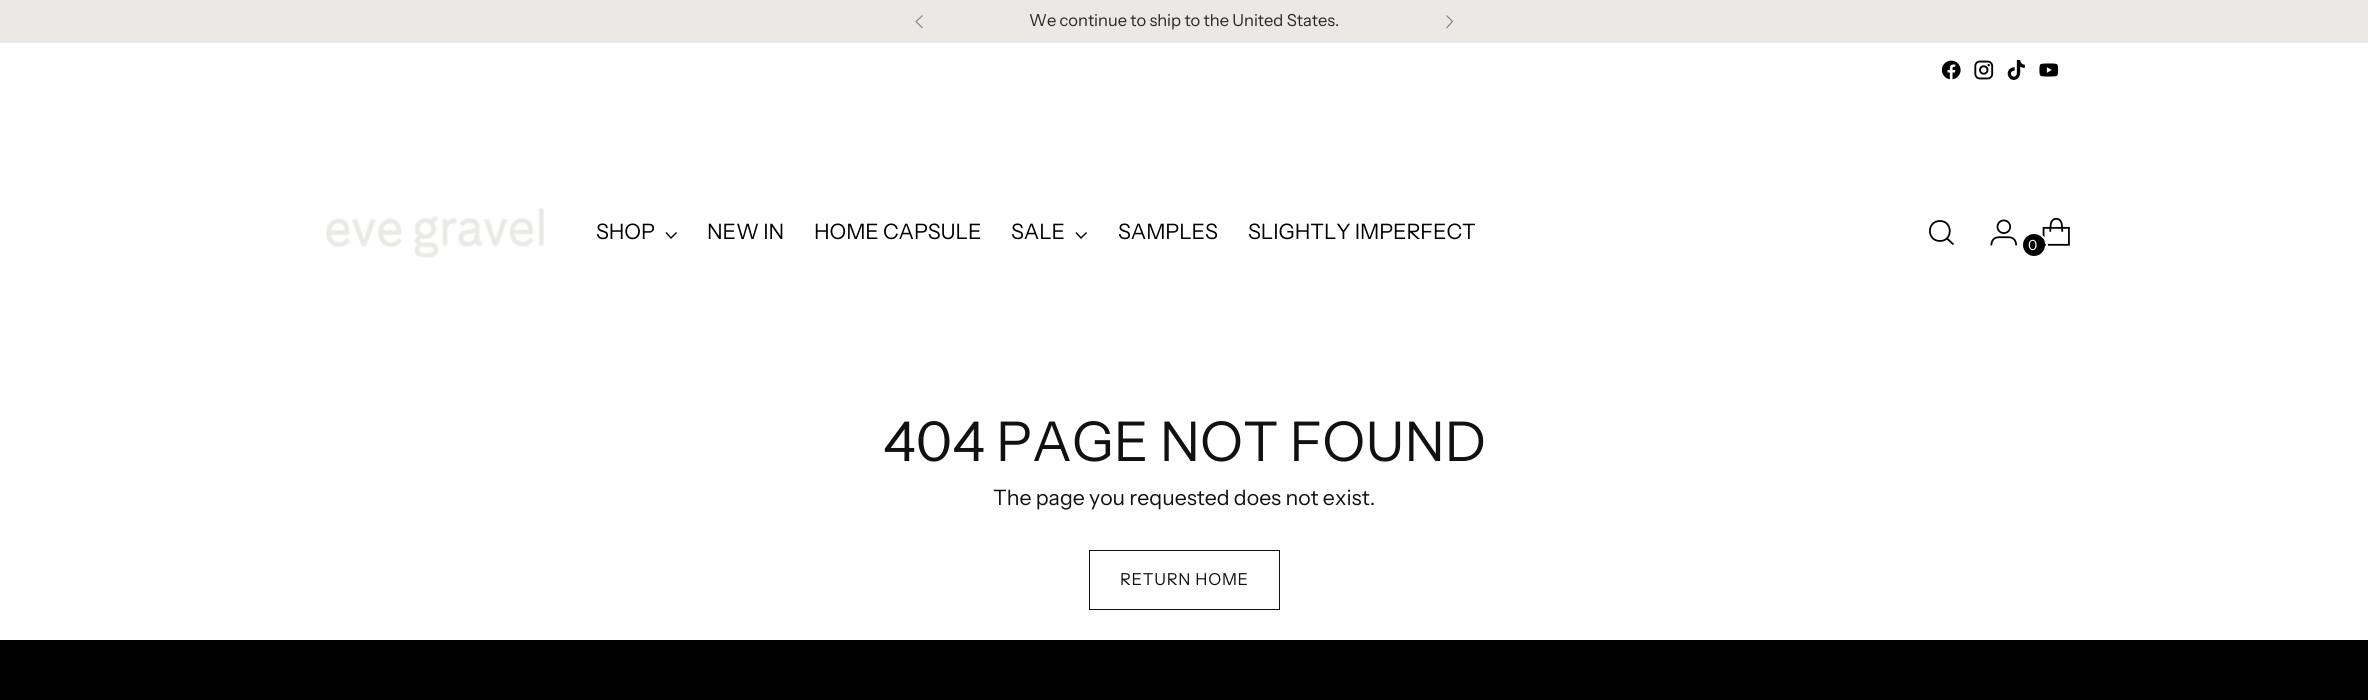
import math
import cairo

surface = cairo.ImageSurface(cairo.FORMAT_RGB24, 2368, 700)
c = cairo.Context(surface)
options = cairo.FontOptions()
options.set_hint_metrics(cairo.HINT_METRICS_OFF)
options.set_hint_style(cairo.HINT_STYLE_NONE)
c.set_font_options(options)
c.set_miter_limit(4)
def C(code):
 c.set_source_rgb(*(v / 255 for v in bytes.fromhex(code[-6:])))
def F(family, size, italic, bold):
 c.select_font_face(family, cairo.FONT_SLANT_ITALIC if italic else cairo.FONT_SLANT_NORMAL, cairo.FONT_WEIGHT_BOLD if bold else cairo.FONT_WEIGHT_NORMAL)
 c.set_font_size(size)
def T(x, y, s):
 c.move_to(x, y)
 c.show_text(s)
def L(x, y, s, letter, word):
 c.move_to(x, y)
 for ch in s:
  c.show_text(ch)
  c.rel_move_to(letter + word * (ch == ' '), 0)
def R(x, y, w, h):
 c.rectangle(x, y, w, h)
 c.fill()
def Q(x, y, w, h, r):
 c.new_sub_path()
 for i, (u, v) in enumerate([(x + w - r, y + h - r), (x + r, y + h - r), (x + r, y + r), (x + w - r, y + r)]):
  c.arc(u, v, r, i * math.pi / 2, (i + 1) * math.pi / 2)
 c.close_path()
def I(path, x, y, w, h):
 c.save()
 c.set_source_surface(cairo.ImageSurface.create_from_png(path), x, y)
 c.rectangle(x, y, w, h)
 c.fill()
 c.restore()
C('ffffff')
c.paint()
C('ebe9e6')
R(0,0,2368,43)
F('Instrument Sans',16.5,0,0)
C('2a232a')
T(1029,26,'We continue to ship to the United States.')
c.new_path()
c.move_to(922.5,15.5)
c.line_to(916,21.5)
c.line_to(922.5,28)
C('8b8688')
c.set_line_width(1.2)
c.stroke()
c.new_path()
c.move_to(1446.5,28)
c.line_to(1452.5,21.5)
c.line_to(1446.5,15.5)
c.stroke()
I('1.png',1941,60,20,20)
I('2.png',1974,60,20,20)
I('3.png',2007,60,18,20)
I('4.png',2039,63,20,14)
I('5.png',326,207,218,51)
F('Instrument Sans',21.25,0,0)
C('000000')
L(596,239,'SHOP',-.1,0)
c.new_path()
c.move_to(666,232.5)
c.line_to(671,238)
c.line_to(676.5,232.5)
c.set_line_width(1.4)
c.stroke()
L(707,239,'NEW IN',-.1,0)
L(814,239,'HOME CAPSULE',-.1,0)
L(1011,239,'SALE',-.1,0)
c.new_path()
c.move_to(1076,232.5)
c.line_to(1081,238)
c.line_to(1086.5,232.5)
c.stroke()
L(1118,239,'SAMPLES',-.1,0)
L(1248,239,'SLIGHTLY IMPERFECT',-.1,0)
c.new_path()
c.move_to(1940,241)
c.curve_to(1953,241,1953,221,1940,221)
c.curve_to(1926.5,221,1926.5,241,1940,241)
c.close_path()
c.set_line_width(1.8)
c.set_line_cap(cairo.LINE_CAP_ROUND)
c.stroke()
c.new_path()
c.move_to(1947,238.5)
c.line_to(1953.5,244.5)
c.set_line_cap(cairo.LINE_CAP_BUTT)
c.stroke()
I('6.png',1990,219,27,27)
I('7.png',2042,218,28,28)
Q(2022,234,25,24,12)
C('ffffff')
c.set_line_width(2)
c.stroke()
C('000000')
c.arc(2034,245,11,0,2 * math.pi)
c.fill()
F('Instrument Sans',14,0,0)
C('ffffff')
T(2028,250,'0')
F('Instrument Sans',54.75,0,0)
C('111111')
T(883,461,'404 PAGE NOT FOUND')
F('Instrument Sans',21.25,0,0)
T(993,505,'The page you requested does not exist.')
c.rectangle(1089.5,550.5,190,59)
c.set_line_width(1)
c.stroke()
F('Instrument Sans',16.5,0,0)
L(1120,585,'RETURN HOME',.75,0)
C('000000')
R(0,640,2368,60)
surface.write_to_png('o.png')
